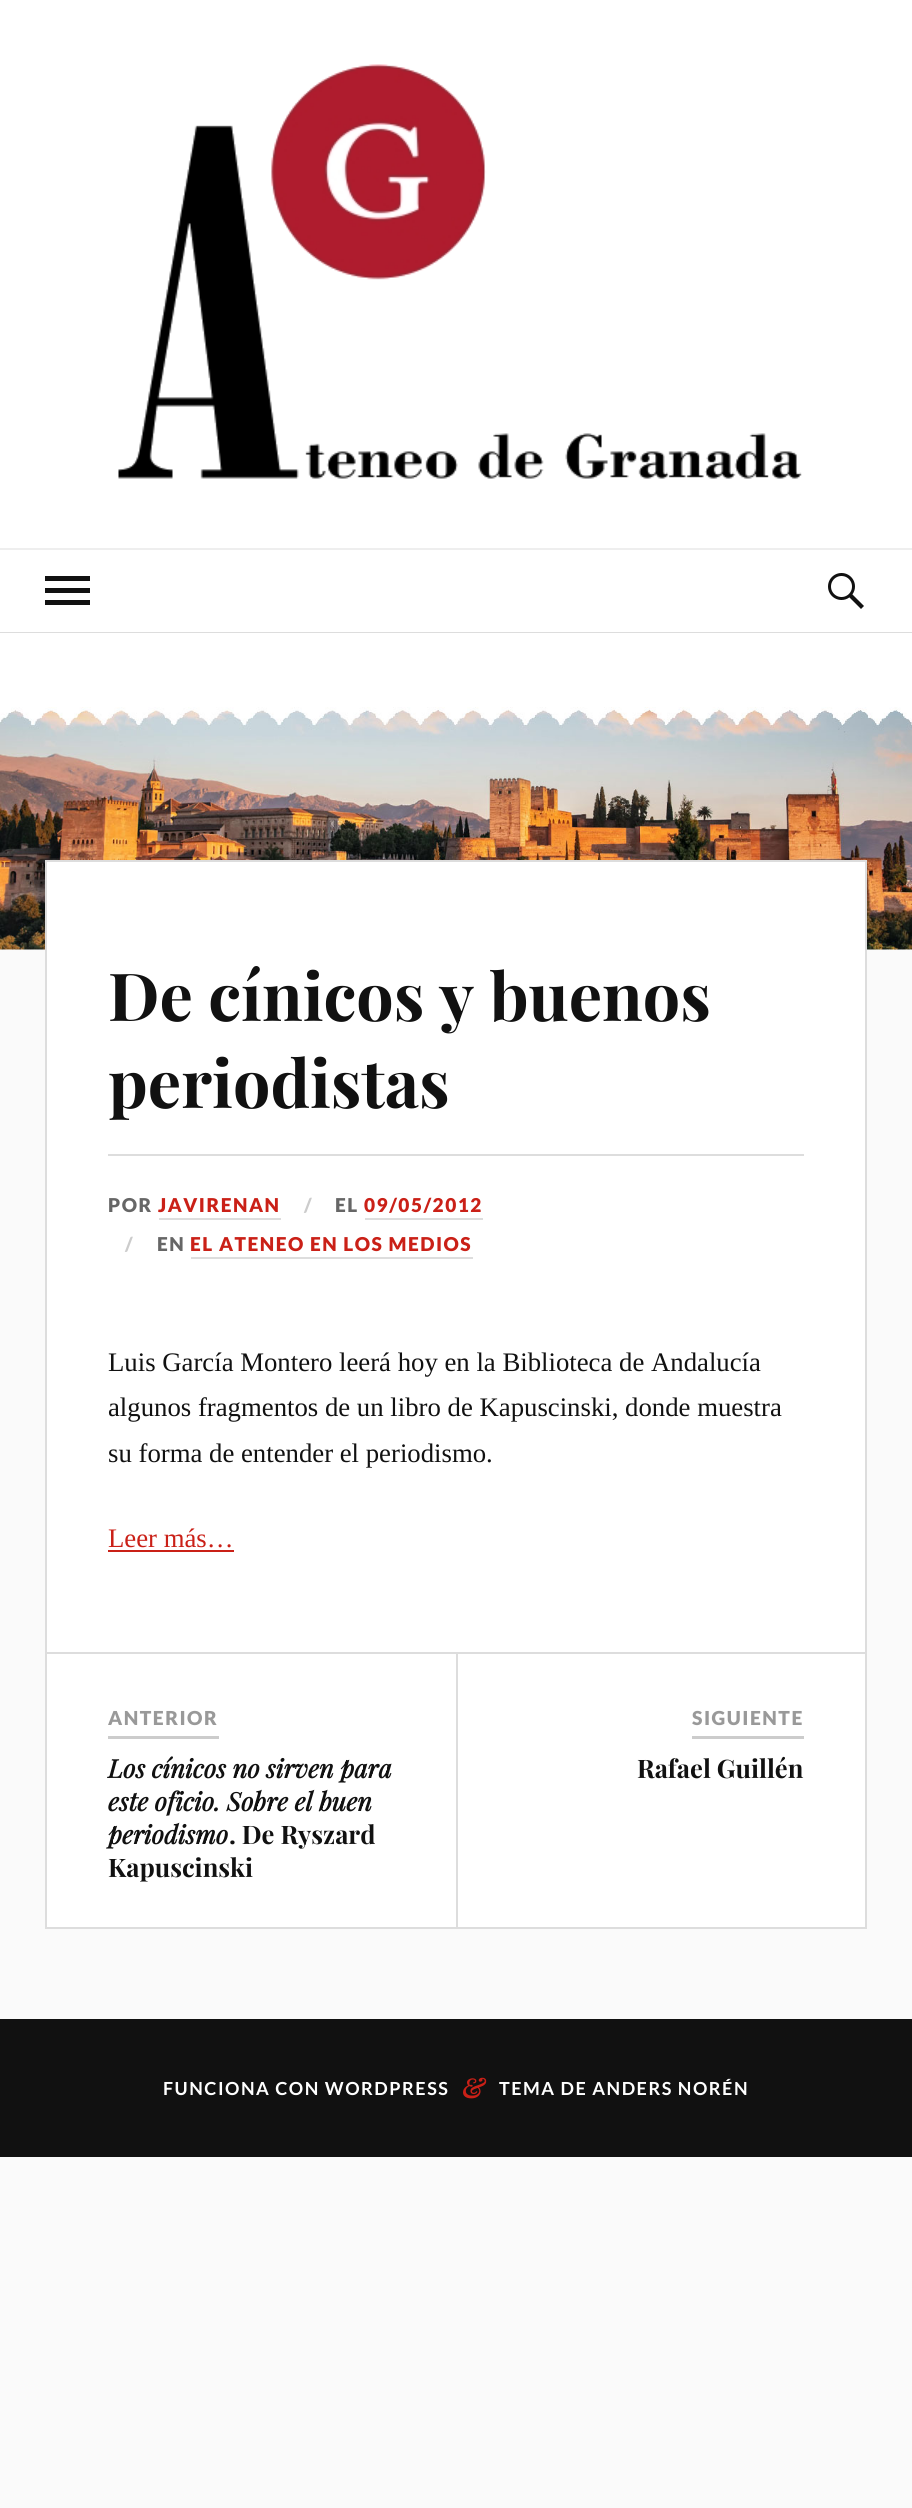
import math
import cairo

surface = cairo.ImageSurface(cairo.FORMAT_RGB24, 912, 2508)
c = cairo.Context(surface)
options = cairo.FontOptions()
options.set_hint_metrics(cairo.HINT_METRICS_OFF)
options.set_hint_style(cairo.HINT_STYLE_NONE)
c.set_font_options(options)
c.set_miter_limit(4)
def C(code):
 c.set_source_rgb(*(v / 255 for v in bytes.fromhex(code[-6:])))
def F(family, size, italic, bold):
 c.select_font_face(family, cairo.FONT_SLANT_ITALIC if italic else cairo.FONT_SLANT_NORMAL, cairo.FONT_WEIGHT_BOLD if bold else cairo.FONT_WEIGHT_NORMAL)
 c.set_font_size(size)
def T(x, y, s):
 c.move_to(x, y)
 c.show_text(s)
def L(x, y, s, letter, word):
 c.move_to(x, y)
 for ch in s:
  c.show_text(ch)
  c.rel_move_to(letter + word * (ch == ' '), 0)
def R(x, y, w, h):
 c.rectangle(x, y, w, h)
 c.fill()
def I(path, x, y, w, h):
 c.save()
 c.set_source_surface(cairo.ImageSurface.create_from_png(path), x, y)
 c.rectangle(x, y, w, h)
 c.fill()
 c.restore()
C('fafafa')
c.paint()
C('ffffff')
R(0,0,912,548)
I('1.png',118,64,684,415)
R(0,550,912,82)
C('eeeeee')
R(0,548,912,2)
C('111111')
R(45,576,45,5)
R(45,588,45,5)
R(45,600,45,5)
I('2.png',828,573,36,36)
C('dddddd')
R(0,632,912,1)
I('3.png',0,633,912,317)
C('ffffff')
c.rectangle(46,861,820,1067)
c.fill_preserve()
C('dddddd')
c.stroke()
F('Playfair Display',66.25,0,1)
C('111111')
T(108,1021,'De cínicos y buenos')
T(108,1108,'periodistas')
C('dddddd')
R(108,1154,696,2)
F('Lato Black',19.1,0,0)
C('666666')
L(108,1212,'POR',1.5,0)
C('ca2017')
L(158,1212,'JAVIRENAN',1.5,0)
C('dddddd')
R(159,1218,122,2)
C('cccccc')
L(304,1212,'/',1.5,0)
C('666666')
L(335,1212,'EL',1.5,0)
C('ca2017')
L(364,1212,'09/05/2012',1.5,0)
C('dddddd')
R(365,1218,118,2)
C('cccccc')
L(125,1251,'/',1.5,0)
C('666666')
L(157,1251,'EN',1.5,0)
C('ca2017')
L(190,1251,'EL ATENEO EN LOS MEDIOS',1.5,0)
C('dddddd')
R(191,1257,282,2)
F('Liberation Serif',26.75,0,0)
C('111111')
T(108,1371,'Luis García Montero leerá hoy en la Biblioteca de Andalucía')
T(108,1416,'algunos fragmentos de un libro de Kapuscinski, donde muestra')
T(108,1462,'su forma de entender el periodismo.')
C('ca2017')
T(108,1547,'Leer más…')
R(108,1550,126,2)
C('dddddd')
R(47,1652,819,2)
R(456,1653,2,275)
C('cccccc')
R(108,1736,111,3)
F('Lato Black',19.25,0,0)
C('999999')
L(108,1725,'ANTERIOR',1.5,0)
F('Playfair Display',25.5,1,1)
C('111111')
T(108,1778,'Los cínicos no sirven para')
T(108,1811,'este oficio. Sobre el buen')
T(108,1844,'periodismo')
F('Playfair Display',25.5,0,1)
T(229,1844,'. De Ryszard')
T(108,1877,'Kapuscinski')
C('cccccc')
R(692,1736,112,3)
F('Lato Black',19.25,0,0)
C('999999')
L(692,1725,'SIGUIENTE',1.5,0)
F('Playfair Display',25.5,0,1)
C('111111')
T(637,1778,'Rafael Guillén')
R(0,2019,912,138)
F('Lato',18,0,1)
C('ffffff')
L(163,2095,'FUNCIONA CON WORDPRESS',1.5,0)
F('Playfair Display',27,1,1)
C('ca2017')
L(462,2098,'&',1.5,0)
F('Lato',18,0,1)
C('ffffff')
L(499,2095,'TEMA DE ANDERS NORÉN',1.5,0)
surface.write_to_png('o.png')
